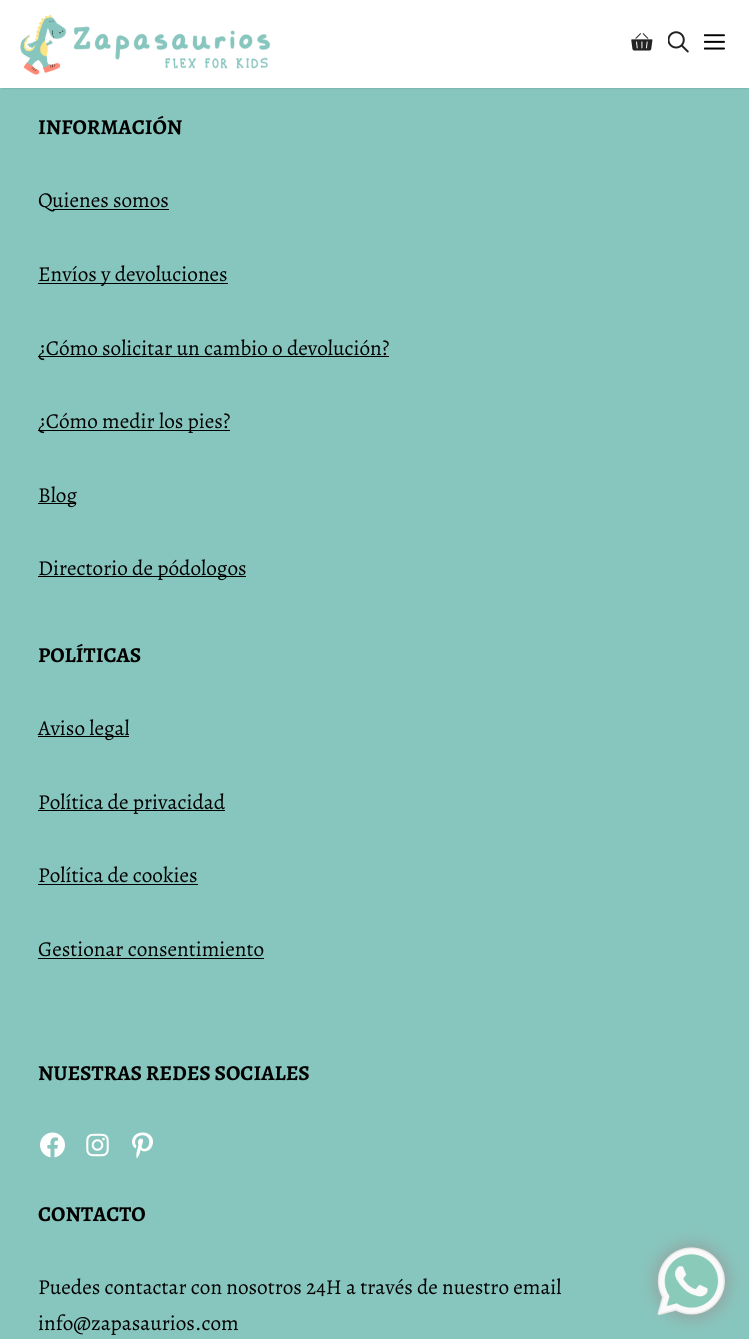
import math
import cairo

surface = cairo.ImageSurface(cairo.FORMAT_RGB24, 749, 1339)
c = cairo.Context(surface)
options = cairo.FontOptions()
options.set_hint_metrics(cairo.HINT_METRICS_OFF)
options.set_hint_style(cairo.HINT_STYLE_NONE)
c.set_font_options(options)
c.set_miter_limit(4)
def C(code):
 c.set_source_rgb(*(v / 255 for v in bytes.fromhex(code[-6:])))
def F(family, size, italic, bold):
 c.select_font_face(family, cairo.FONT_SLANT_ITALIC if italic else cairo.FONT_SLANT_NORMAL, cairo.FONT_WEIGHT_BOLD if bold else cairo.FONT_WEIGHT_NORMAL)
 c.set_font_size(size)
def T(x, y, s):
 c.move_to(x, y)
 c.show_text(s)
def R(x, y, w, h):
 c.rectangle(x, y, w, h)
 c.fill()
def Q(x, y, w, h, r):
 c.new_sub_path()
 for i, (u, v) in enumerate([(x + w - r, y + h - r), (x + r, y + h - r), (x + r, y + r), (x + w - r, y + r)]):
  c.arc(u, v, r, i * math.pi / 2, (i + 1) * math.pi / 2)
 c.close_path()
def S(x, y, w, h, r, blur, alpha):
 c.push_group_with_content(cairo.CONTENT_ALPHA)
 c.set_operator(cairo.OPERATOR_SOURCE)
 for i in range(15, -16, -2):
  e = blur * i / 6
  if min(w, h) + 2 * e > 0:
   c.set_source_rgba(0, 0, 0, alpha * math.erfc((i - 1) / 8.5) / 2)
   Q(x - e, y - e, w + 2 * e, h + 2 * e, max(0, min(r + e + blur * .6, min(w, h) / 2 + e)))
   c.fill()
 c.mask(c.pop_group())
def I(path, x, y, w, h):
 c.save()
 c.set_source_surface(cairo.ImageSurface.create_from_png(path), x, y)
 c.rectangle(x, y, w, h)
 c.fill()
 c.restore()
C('87c6be')
c.paint()
C('000000')
S(3,5,745,83,0,1,.2)
C('ffffff')
R(0,0,749,88)
I('1.png',20,14,251,61)
I('2.png',631,33,22,18)
I('3.png',668,31,21,22)
I('4.png',704,34,21,16)
F('Alegreya',21.25,0,1)
C('010101')
T(38,134,'INFORMACIÓN')
F('Alegreya',21.25,0,0)
T(38,207,'Q')
T(52,207,'uienes somos')
C('000000')
R(53,209,116,1)
R(38,283,190,1)
C('010101')
T(38,281,'Envíos y devoluciones')
C('000000')
R(38,356,351,1)
C('010101')
T(38,355,'¿Cómo solicitar un cambio o devolución?')
C('000000')
R(38,430,192,1)
C('010101')
T(38,428,'¿Cómo medir los pies?')
C('000000')
R(38,503,38,1)
C('010101')
T(38,502,'Blog')
C('000000')
R(38,576,208,1)
C('010101')
T(38,575,'Directorio de pódologos')
F('Alegreya',21.25,0,1)
T(38,662,'POLÍTICAS')
C('000000')
R(38,736,91,1)
F('Alegreya',21.25,0,0)
C('010101')
T(38,735,'Aviso legal')
C('000000')
R(38,810,187,1)
C('010101')
T(38,809,'Política de privacidad')
T(38,882,'Política de cookies')
C('000000')
R(38,884,160,1)
C('010101')
T(38,956,'Gestionar consentimiento')
C('000000')
R(38,958,226,1)
F('Alegreya',21.25,0,1)
C('010101')
T(38,1080,'NUESTRAS REDES SOCIALES')
I('5.png',40,1132,25,26)
I('6.png',86,1133,23,24)
I('7.png',132,1132,21,27)
T(38,1221,'CONTACTO')
F('Alegreya',21.25,0,0)
T(38,1294,'Puedes contactar con nosotros 24H a través de nuestro email')
T(38,1330,'info@zapasaurios.com')
C('999999')
S(658,1248,67,67,33.5,9.5,1)
I('8.png',657,1247,68,68)
surface.write_to_png('o.png')
